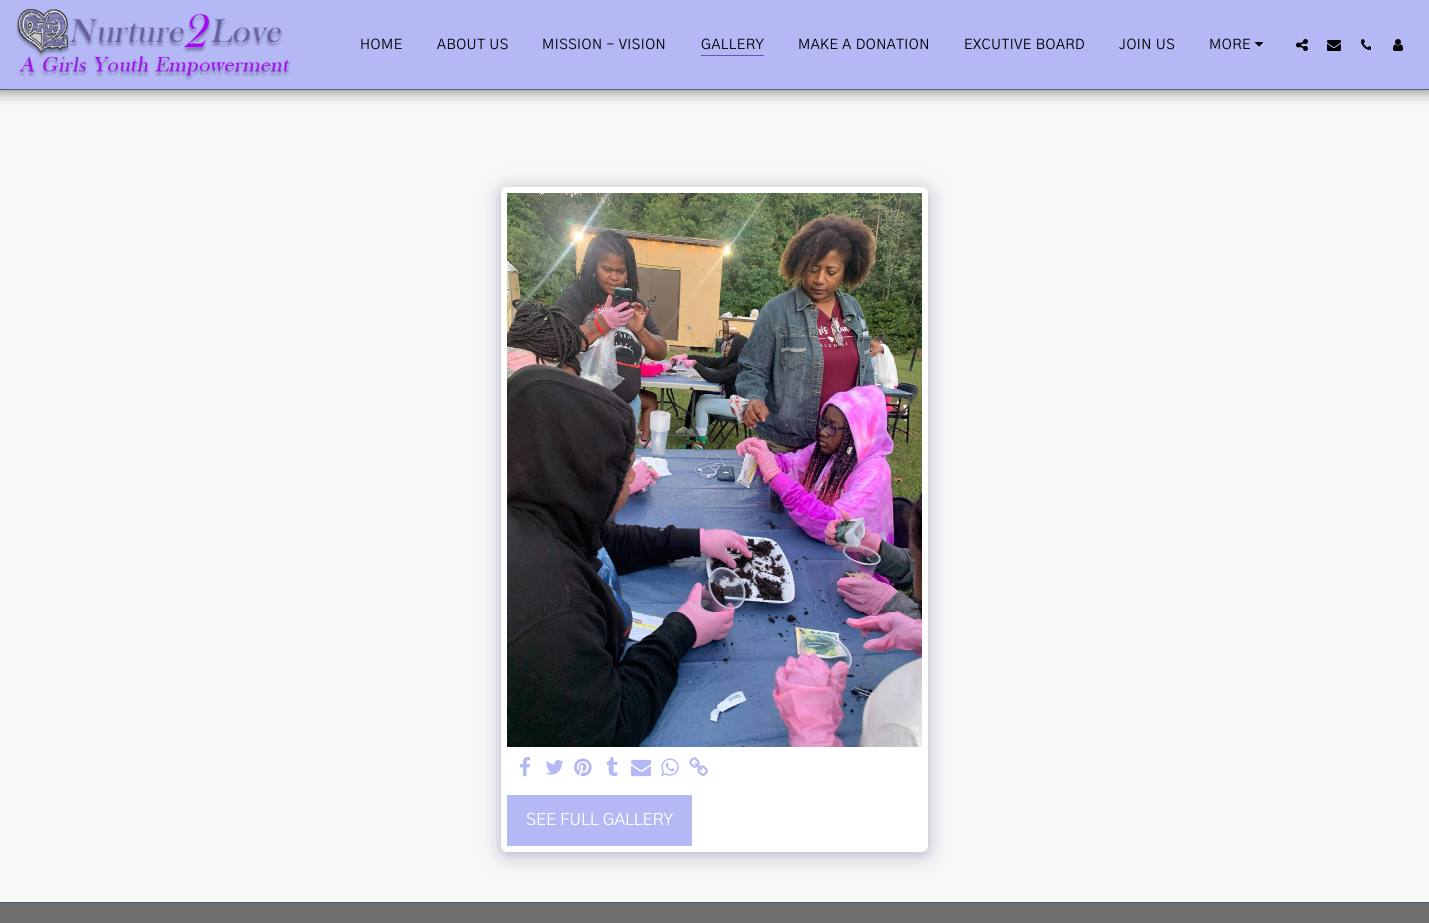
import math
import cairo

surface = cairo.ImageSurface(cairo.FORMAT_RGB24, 1429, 923)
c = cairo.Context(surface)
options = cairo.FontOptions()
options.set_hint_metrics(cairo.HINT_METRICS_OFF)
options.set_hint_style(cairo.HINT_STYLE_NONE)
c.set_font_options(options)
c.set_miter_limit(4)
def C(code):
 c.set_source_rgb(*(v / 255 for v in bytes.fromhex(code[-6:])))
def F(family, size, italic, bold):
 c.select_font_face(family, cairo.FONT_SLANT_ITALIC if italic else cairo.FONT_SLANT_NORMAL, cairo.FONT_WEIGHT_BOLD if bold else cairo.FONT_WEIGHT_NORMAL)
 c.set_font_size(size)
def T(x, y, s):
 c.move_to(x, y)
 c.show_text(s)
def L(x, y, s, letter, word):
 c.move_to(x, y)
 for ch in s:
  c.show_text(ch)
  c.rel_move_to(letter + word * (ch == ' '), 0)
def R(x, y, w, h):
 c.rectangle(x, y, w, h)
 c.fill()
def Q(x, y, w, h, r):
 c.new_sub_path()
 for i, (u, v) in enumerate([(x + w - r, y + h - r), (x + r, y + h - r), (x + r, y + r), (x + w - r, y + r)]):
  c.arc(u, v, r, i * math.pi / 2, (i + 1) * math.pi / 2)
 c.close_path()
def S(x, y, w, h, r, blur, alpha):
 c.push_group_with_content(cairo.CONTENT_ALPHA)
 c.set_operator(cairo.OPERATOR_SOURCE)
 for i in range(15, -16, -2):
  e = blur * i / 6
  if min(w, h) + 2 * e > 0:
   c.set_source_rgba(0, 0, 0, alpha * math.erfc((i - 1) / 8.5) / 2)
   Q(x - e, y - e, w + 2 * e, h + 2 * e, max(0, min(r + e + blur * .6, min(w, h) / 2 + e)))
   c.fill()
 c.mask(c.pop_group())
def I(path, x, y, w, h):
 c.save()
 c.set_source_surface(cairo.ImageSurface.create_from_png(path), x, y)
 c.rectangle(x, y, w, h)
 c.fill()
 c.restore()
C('495d7f')
c.paint()
C('f7f9f8')
R(0,90,1429,812)
C('000000')
S(-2,0,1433,94,0,6,.35)
C('b4b8f5')
R(0,0,1429,89)
C('495d7f')
R(0,89,1429,1)
I('1.png',16,9,274,71)
F('Gothic A1',14,0,0)
C('000000')
L(360,49,'HOME',.5,0)
L(437,49,'ABOUT US',.5,0)
L(542,49,'MISSION - VISION',.5,0)
L(701,49,'GALLERY',.5,0)
C('6957af')
R(701,55,63,1)
C('000000')
L(798,49,'MAKE A DONATION',.5,0)
L(964,49,'EXCUTIVE BOARD',.5,0)
L(1119,49,'JOIN US',.5,0)
L(1209,49,'MORE',.5,0)
I('2.png',1255,42,8,5)
I('3.png',1296,39,12,12)
I('4.png',1327,40,14,11)
I('5.png',1361,39,10,11)
I('6.png',1393,39,10,12)
C('4d3f7a')
S(501,190,427,665,6,10,.4)
C('ffffff')
Q(501,187,427,665,6)
c.fill()
I('7.png',507,193,415,554)
I('8.png',520,757,10,20)
I('9.png',545,760,19,15)
I('10.png',574,758,18,19)
I('11.png',606,757,12,20)
I('12.png',631,759,20,18)
I('13.png',661,758,18,19)
I('14.png',689,757,19,19)
C('b4b8f5')
R(507,795,185,51)
F('Gothic A1',16.5,0,0)
C('ffffff')
T(526,825,'SEE FULL GALLERY')
C('707070')
R(0,903,1429,20)
surface.write_to_png('o.png')
